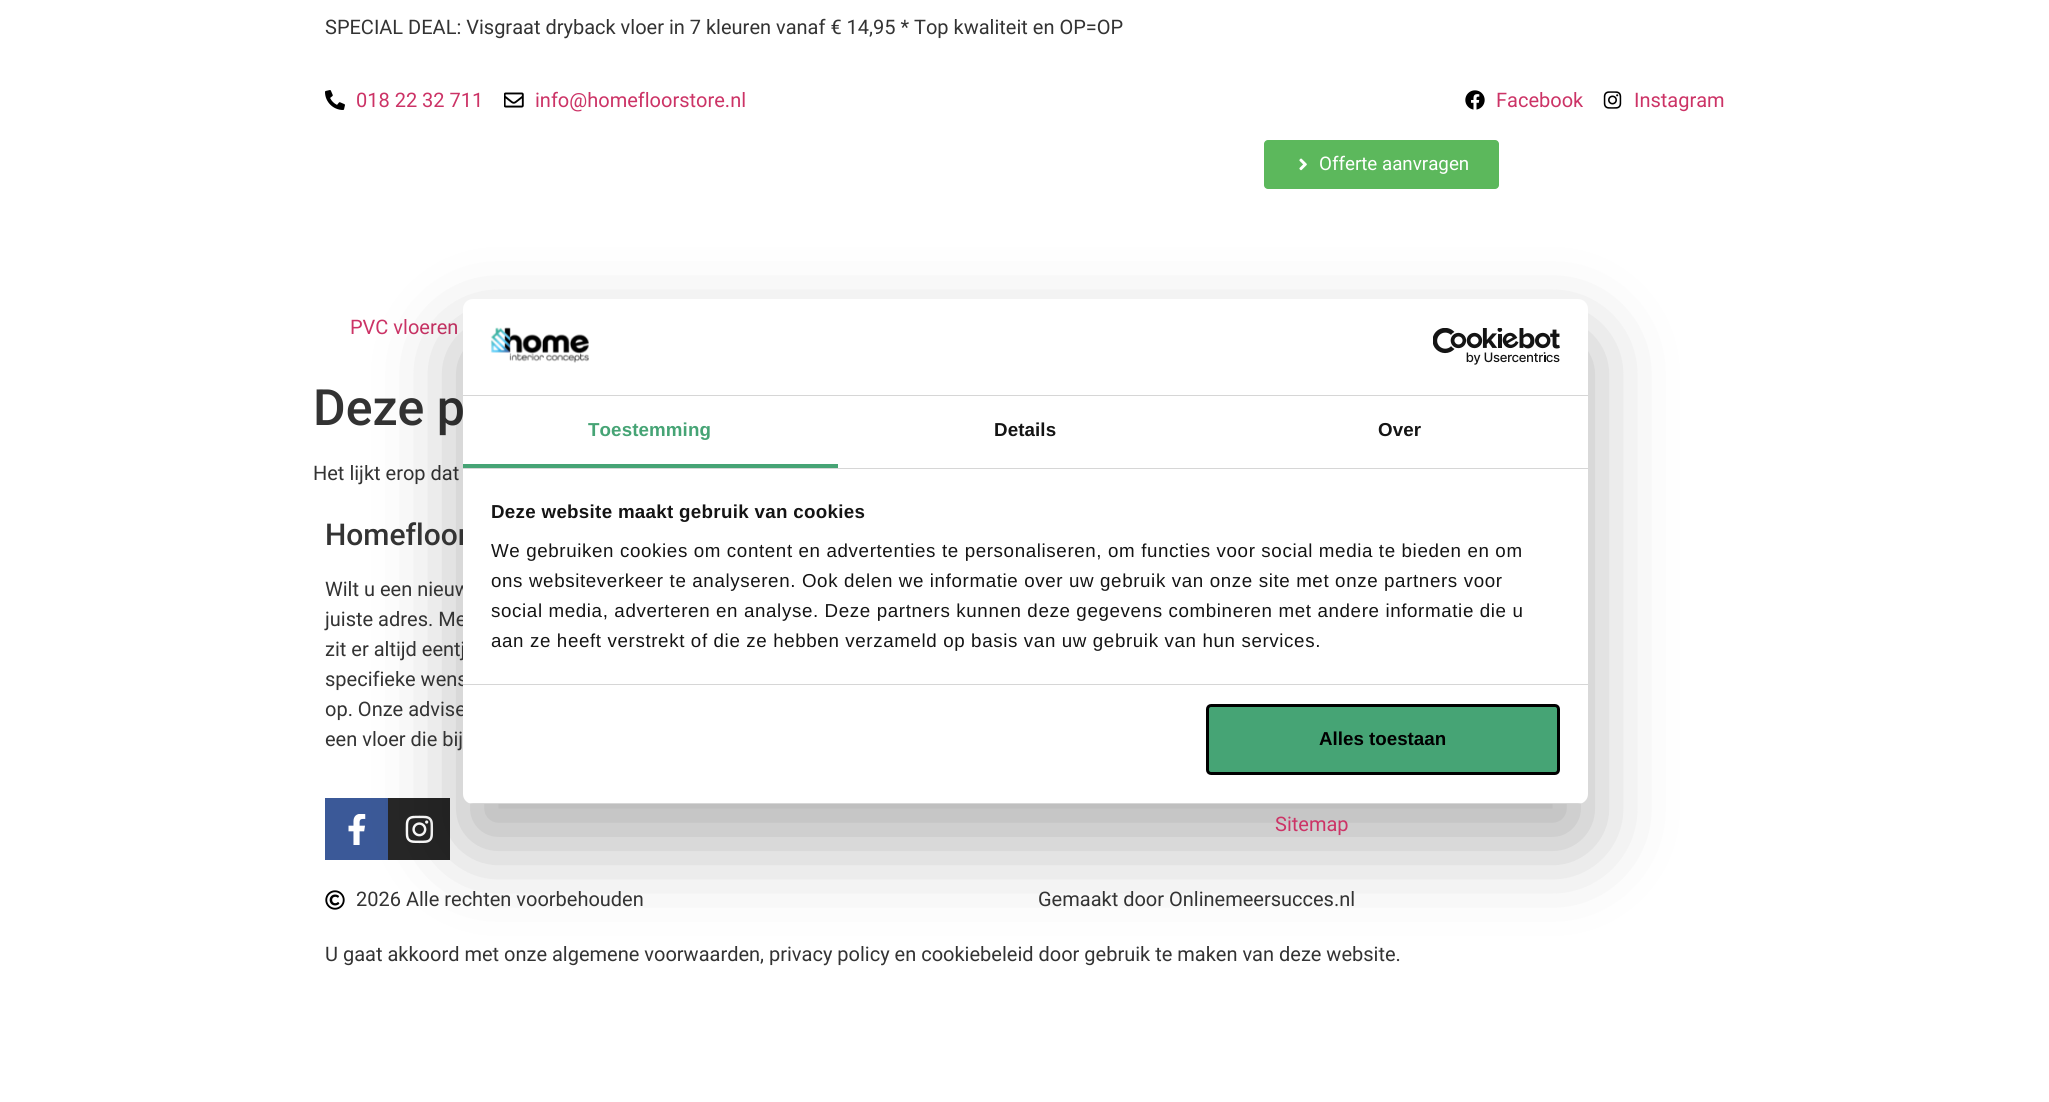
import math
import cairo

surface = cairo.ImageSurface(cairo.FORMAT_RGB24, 2049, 1102)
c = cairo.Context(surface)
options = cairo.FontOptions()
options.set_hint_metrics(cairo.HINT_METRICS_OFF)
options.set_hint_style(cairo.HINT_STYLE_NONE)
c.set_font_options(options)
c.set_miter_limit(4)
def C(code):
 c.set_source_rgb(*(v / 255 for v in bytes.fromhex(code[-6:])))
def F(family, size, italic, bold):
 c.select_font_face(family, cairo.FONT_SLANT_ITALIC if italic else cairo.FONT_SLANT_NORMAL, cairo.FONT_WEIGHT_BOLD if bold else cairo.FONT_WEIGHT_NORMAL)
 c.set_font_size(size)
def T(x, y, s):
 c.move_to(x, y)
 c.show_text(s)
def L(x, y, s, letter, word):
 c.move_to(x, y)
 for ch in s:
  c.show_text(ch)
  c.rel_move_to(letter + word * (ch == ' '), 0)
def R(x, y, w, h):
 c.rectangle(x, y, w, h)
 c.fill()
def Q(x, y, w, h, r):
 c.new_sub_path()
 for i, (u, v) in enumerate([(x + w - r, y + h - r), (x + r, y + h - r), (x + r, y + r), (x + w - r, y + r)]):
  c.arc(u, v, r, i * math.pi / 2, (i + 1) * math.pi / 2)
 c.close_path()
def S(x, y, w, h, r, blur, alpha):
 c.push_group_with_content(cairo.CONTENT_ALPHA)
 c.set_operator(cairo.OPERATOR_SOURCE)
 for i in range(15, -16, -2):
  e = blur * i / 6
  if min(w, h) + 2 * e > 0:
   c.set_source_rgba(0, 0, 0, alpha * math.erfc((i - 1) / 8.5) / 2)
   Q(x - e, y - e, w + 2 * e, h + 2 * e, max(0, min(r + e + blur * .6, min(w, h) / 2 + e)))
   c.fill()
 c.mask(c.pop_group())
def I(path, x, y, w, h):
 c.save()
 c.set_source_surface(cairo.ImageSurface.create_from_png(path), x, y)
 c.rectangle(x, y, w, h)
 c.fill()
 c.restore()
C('ffffff')
c.paint()
F('Roboto',20,0,0)
C('333333')
T(325,34,'SPECIAL DEAL: Visgraat dryback vloer in 7 kleuren vanaf € 14,95 * Top kwaliteit en OP=OP')
I('1.png',325,90,20,20)
C('cc3366')
T(356,107,'018 22 32 711')
I('2.png',504,92,20,16)
T(535,107,'info@homefloorstore.nl')
I('3.png',1465,90,20,20)
T(1496,107,'Facebook')
I('4.png',1603,91,19,18)
T(1634,107,'Instagram')
C('5cb85c')
Q(1264,140,235,49,4)
c.fill()
I('5.png',1299,158,8,13)
F('Roboto',18.75,0,0)
C('ffffff')
T(1319,170,'Offerte aanvragen')
F('Roboto',20,0,0)
C('cc3366')
T(350,334,'PVC vloeren')
F('Roboto Medium',50,0,0)
C('333333')
T(313,425,'Deze p')
F('Roboto',20,0,0)
T(313,480,'Het lijkt erop dat')
C('3b5998')
R(325,798,63,62)
I('8.png',348,814,18,31)
C('262626')
R(388,798,62,62)
I('9.png',405,815,29,29)
I('10.png',325,890,20,20)
C('000000')
S(463,339,1125,505,10,42.5,.3)
F('Roboto Medium',30,0,0)
C('333333')
T(325,545,'Homefloor')
F('Roboto',20,0,0)
T(325,596,'Wilt u een nieuw')
T(325,626,'juiste adres. Me')
T(325,656,'zit er altijd eentj')
T(325,686,'specifieke wens')
T(325,716,'op. Onze advise')
C('ffffff')
Q(463,299,1125,505,10)
c.fill()
C('d6d6d6')
R(463,395,1125,1)
I('6.png',490,327,99,36)
I('7.png',1433,328,127,37)
R(463,468,1125,1)
C('46a475')
R(463,464,375,4)
F('Liberation Sans',18.75,0,1)
L(588,436,'Toestemming',.1,0)
C('141414')
L(994,436,'Details',.1,0)
L(1378,436,'Over',.1,0)
C('d6d6d6')
R(463,684,1125,1)
C('141414')
L(491,518,'Deze website maakt gebruik van cookies',.3,0)
F('Liberation Sans',18.75,0,0)
L(491,557,'We gebruiken cookies om content en advertenties te personaliseren, om functies voor social media te bieden en om',.62,0)
L(491,587,'ons websiteverkeer te analyseren. Ook delen we informatie over uw gebruik van onze site met onze partners voor',.62,0)
L(491,617,'social media, adverteren en analyse. Deze partners kunnen deze gegevens combineren met andere informatie die u',.62,0)
L(491,647,'aan ze heeft verstrekt of die ze hebben verzameld op basis van uw gebruik van hun services.',.62,0)
c.save()
Q(463,299,1125,505,10)
c.clip()
C('d6d6d6')
R(463,803,1125,1)
c.restore()
C('46a475')
Q(1207.5,705.5,351,68,3.5)
c.fill_preserve()
C('000000')
c.set_line_width(3)
c.stroke()
F('Liberation Sans',18.75,0,1)
T(1319,745,'Alles toestaan')
F('Roboto',20,0,0)
C('333333')
T(325,746,'een vloer die bij')
C('cc3366')
T(1275,831,'Sitemap')
C('333333')
T(356,906,'2026 Alle rechten voorbehouden')
T(1038,906,'Gemaakt door Onlinemeersucces.nl')
T(325,961,'U gaat akkoord met onze algemene voorwaarden, privacy policy en cookiebeleid door gebruik te maken van deze website.')
surface.write_to_png('o.png')
